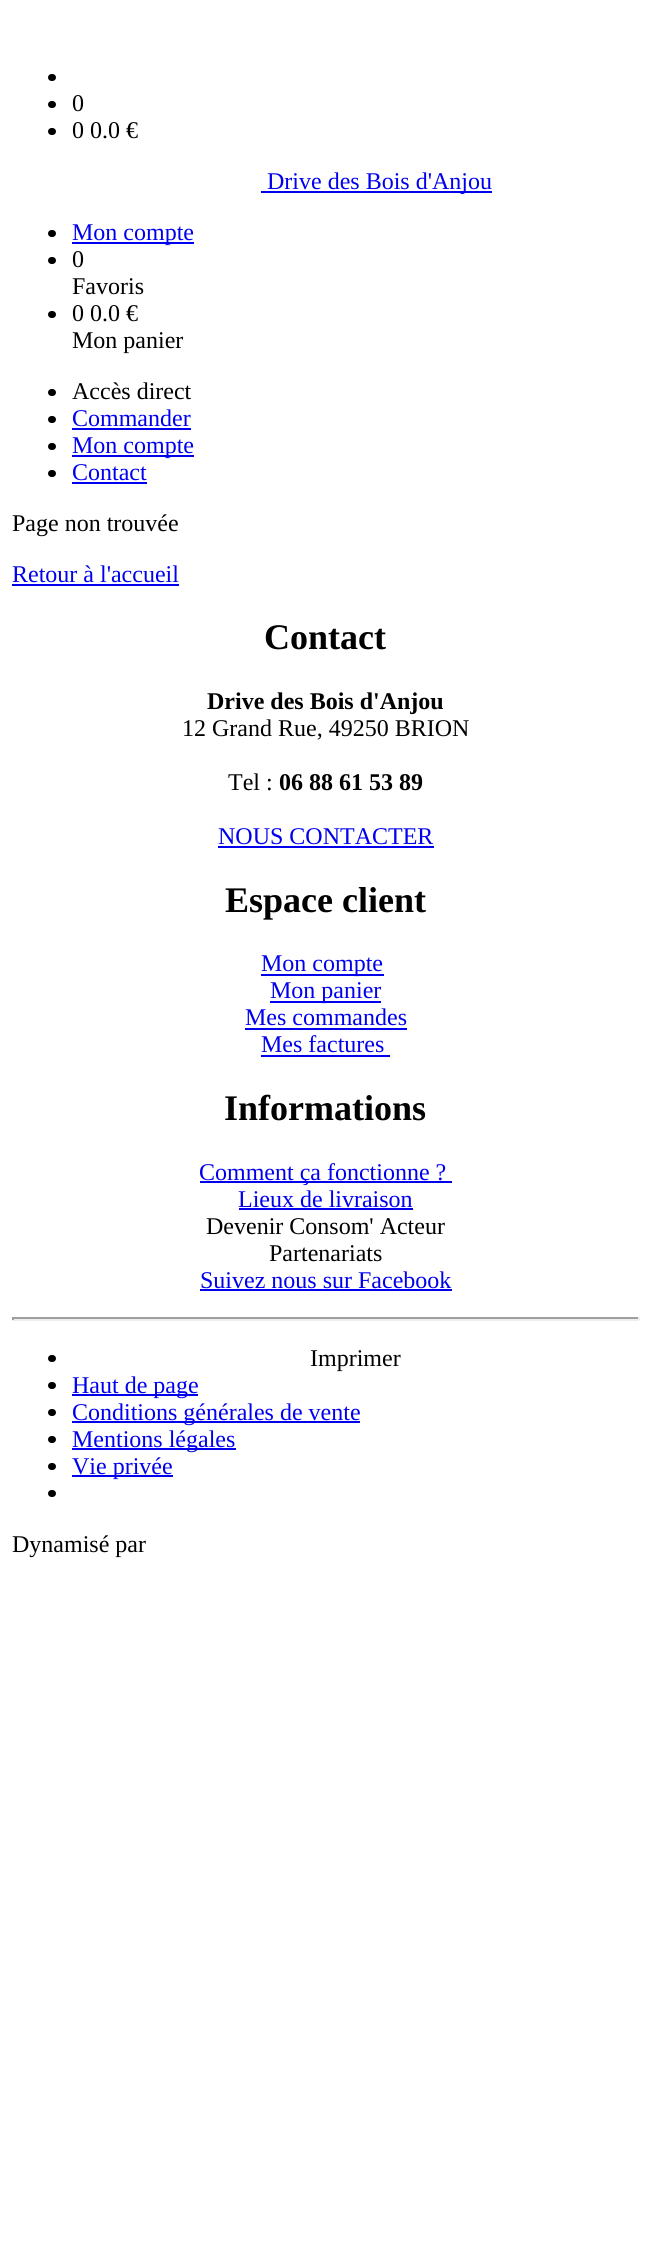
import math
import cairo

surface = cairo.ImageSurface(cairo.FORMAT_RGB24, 651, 2247)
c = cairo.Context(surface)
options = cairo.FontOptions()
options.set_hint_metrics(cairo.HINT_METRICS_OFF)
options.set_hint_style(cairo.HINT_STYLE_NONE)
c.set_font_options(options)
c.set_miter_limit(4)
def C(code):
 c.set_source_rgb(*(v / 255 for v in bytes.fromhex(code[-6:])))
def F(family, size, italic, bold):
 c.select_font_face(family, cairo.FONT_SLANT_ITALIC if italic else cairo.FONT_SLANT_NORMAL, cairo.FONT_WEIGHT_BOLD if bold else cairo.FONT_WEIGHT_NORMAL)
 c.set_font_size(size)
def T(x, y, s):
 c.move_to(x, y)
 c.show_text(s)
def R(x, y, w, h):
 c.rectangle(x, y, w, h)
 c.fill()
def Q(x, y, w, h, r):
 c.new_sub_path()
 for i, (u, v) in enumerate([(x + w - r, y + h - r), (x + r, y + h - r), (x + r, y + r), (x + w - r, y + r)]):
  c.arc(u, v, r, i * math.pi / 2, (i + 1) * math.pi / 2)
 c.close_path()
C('ffffff')
c.paint()
C('000000')
Q(48,74,8,7,3.5)
c.fill()
Q(48,101,8,7,3.5)
c.fill()
F('Liberation Serif',24,0,0)
T(72,111,'0')
Q(48,128,8,7,3.5)
c.fill()
T(72,138,'0 0.0 €')
C('0000ee')
R(261,191,231,2)
T(267,189,'Drive des Bois d\'Anjou')
C('000000')
Q(48,230,8,7,3.5)
c.fill()
C('0000ee')
R(72,242,122,2)
T(72,240,'Mon compte')
C('000000')
Q(48,257,8,7,3.5)
c.fill()
T(72,267,'0')
T(72,294,'Favoris')
Q(48,311,8,7,3.5)
c.fill()
T(72,321,'0 0.0 €')
T(72,348,'Mon panier')
Q(48,389,8,7,3.5)
c.fill()
T(72,399,'Accès direct')
Q(48,416,8,7,3.5)
c.fill()
C('0000ee')
T(72,426,'Commander')
R(72,428,119,2)
C('000000')
Q(48,443,8,7,3.5)
c.fill()
C('0000ee')
R(72,455,122,2)
T(72,453,'Mon compte')
C('000000')
Q(48,470,8,7,3.5)
c.fill()
C('0000ee')
T(72,480,'Contact')
R(72,482,75,2)
C('000000')
T(12,531,'Page non trouvée')
C('0000ee')
T(12,582,'Retour à l\'accueil')
R(12,584,167,2)
F('Liberation Serif',36,0,1)
C('000000')
T(264,649,'Contact')
F('Liberation Serif',24,0,1)
T(207,709,'Drive des Bois d\'Anjou')
F('Liberation Serif',24,0,0)
T(182,736,'12 Grand Rue, 49250 BRION')
T(228,790,'Tel :')
F('Liberation Serif',24,0,1)
T(279,790,'06 88 61 53 89')
F('Liberation Serif',24,0,0)
C('0000ee')
T(218,844,'NOUS CONTACTER')
R(218,846,216,2)
F('Liberation Serif',36,0,1)
C('000000')
T(225,912,'Espace client')
C('0000ee')
R(261,974,123,2)
F('Liberation Serif',24,0,0)
T(261,971,'Mon compte')
R(270,1001,111,2)
T(270,998,'Mon panier')
T(245,1025,'Mes commandes')
R(245,1028,162,2)
T(261,1052,'Mes factures')
R(261,1055,129,2)
F('Liberation Serif',36,0,1)
C('000000')
T(224,1120,'Informations')
C('0000ee')
R(200,1181,252,2)
F('Liberation Serif',24,0,0)
T(199,1180,'Comment ça fonctionne ?')
T(238,1207,'Lieux de livraison')
R(239,1208,174,2)
C('000000')
T(206,1234,'Devenir Consom\' Acteur')
T(269,1261,'Partenariats')
C('0000ee')
T(200,1288,'Suivez nous sur Facebook')
R(200,1289,252,2)
C('9f9f9f')
R(12,1317,627,2)
C('eeeeee')
R(638,1317,2,3)
R(12,1319,627,2)
C('9f9f9f')
R(12,1317,2,3)
C('000000')
Q(48,1355,8,7,3.5)
c.fill()
T(310,1366,'Imprimer')
Q(48,1382,8,7,3.5)
c.fill()
C('0000ee')
R(72,1394,126,2)
T(72,1393,'Haut de page')
C('000000')
Q(48,1409,8,7,3.5)
c.fill()
C('0000ee')
R(72,1421,288,2)
T(72,1420,'Conditions générales de vente')
C('000000')
Q(48,1436,8,7,3.5)
c.fill()
C('0000ee')
R(72,1448,164,2)
T(72,1447,'Mentions légales')
C('000000')
Q(48,1463,8,7,3.5)
c.fill()
C('0000ee')
R(72,1475,101,2)
T(72,1474,'Vie privée')
C('000000')
Q(48,1490,8,7,3.5)
c.fill()
T(12,1552,'Dynamisé par')
surface.write_to_png('o.png')
